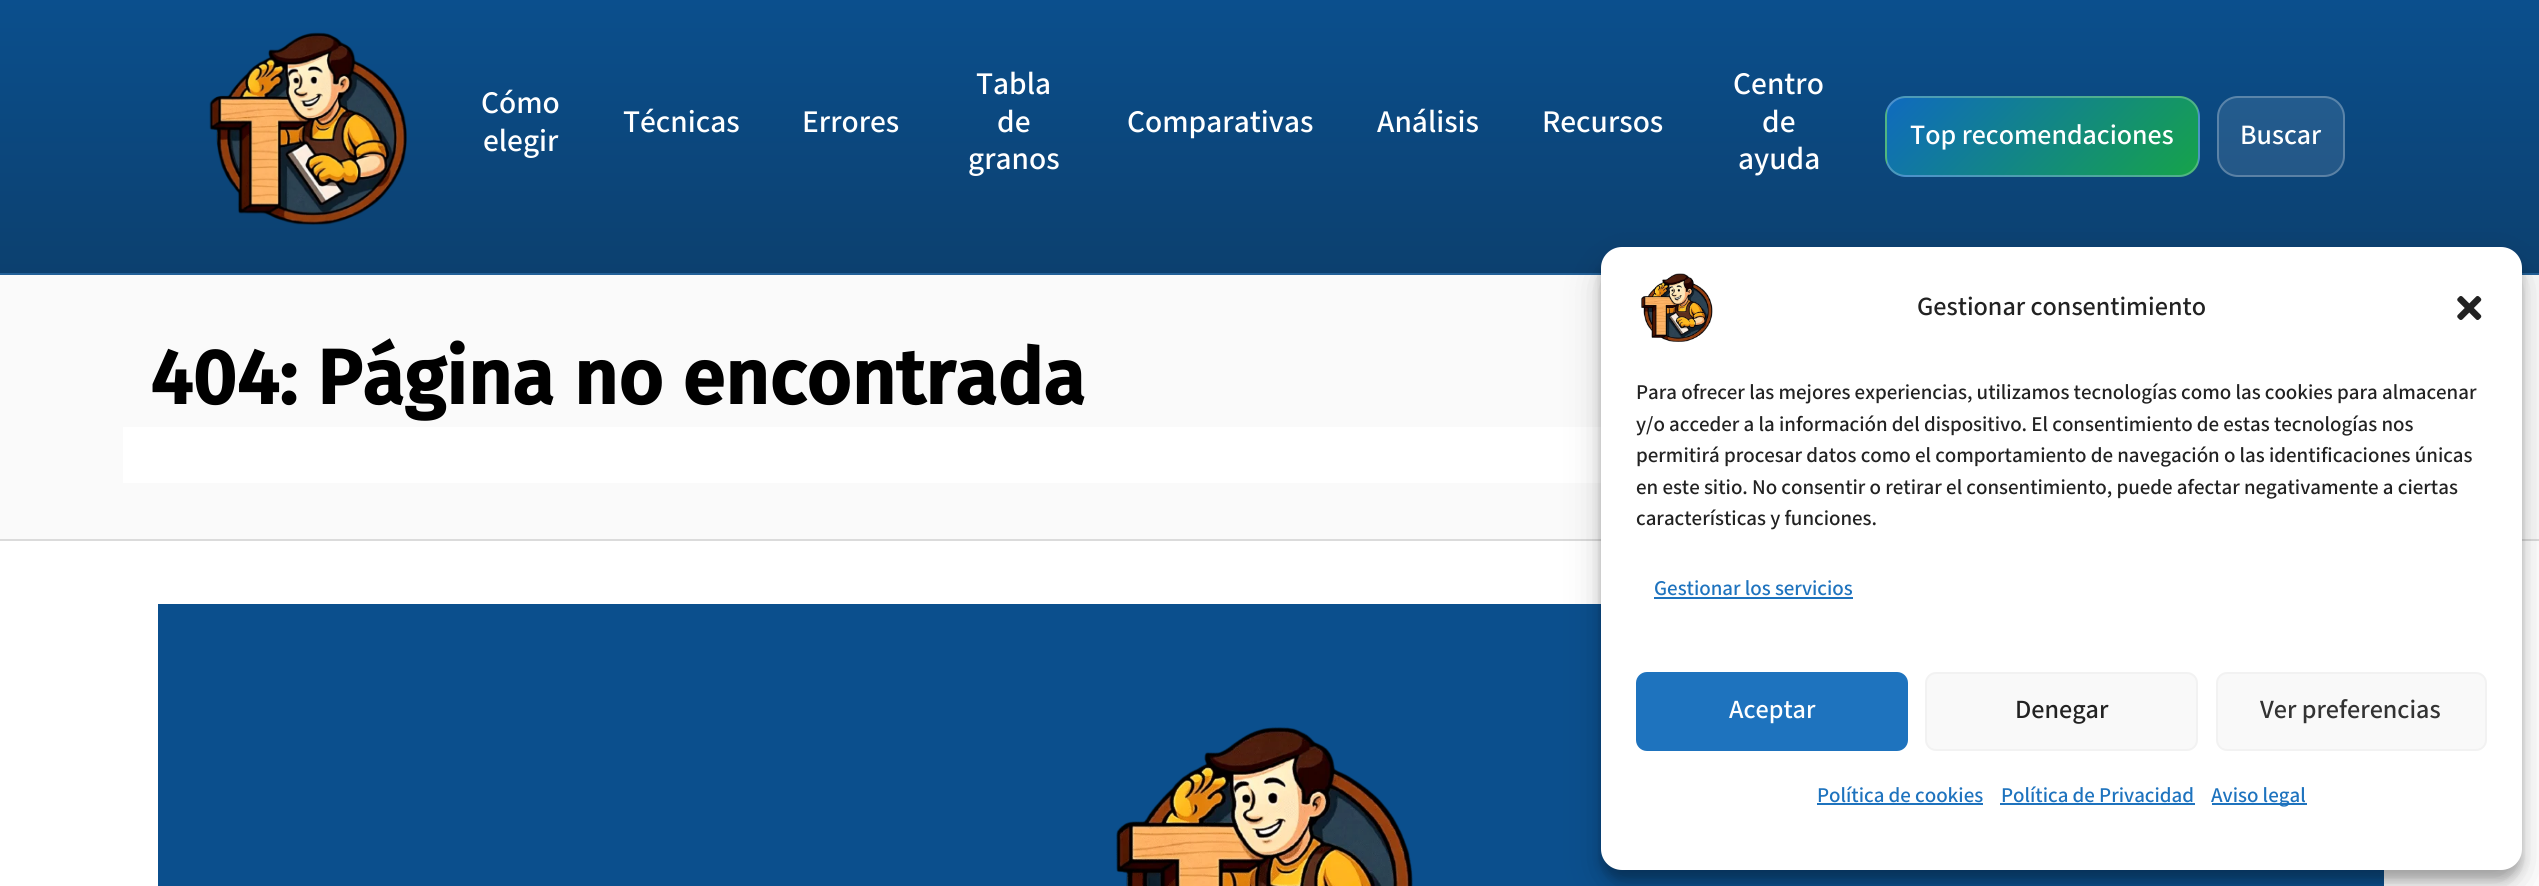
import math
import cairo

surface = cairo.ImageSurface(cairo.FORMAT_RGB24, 2539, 886)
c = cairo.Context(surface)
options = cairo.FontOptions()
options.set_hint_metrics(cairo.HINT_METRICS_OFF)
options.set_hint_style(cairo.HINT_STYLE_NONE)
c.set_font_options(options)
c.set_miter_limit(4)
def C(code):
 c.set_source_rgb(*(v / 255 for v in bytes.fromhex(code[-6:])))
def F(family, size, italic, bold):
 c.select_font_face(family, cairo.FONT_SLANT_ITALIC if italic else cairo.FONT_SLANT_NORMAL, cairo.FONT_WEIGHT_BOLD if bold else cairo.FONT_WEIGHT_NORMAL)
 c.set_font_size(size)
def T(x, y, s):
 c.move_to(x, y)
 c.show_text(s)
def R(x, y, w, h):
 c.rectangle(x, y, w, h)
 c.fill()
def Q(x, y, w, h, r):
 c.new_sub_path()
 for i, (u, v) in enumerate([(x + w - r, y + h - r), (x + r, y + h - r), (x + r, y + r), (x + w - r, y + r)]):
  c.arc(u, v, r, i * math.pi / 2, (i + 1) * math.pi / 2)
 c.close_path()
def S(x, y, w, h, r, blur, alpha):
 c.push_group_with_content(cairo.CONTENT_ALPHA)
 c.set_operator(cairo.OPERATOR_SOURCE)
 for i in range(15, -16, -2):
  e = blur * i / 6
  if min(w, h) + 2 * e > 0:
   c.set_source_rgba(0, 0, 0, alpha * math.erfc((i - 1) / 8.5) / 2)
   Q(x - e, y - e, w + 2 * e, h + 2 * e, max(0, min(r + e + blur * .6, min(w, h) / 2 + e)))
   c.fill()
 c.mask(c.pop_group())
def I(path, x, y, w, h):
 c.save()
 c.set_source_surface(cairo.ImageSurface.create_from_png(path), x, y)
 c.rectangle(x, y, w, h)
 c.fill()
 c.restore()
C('fafafa')
c.paint()
gradient = cairo.LinearGradient(1270,0,1270,273)
gradient.add_color_stop_rgba(0,0.043,0.31,0.553,1)
gradient.add_color_stop_rgba(1,0.047,0.251,0.435,1)
c.set_source(gradient)
R(0,0,2539,273)
C('236198')
R(0,273,2539,2)
I('1.png',209,32,198,193)
F('Mada Medium',31.5,0,0)
C('ffffff')
T(481,113,'Cómo')
T(483,151,'elegir')
T(623,132,'Técnicas')
T(802,132,'Errores')
T(976,94,'Tabla')
T(997,132,'de')
T(968,169,'granos')
T(1127,132,'Comparativas')
T(1377,132,'Análisis')
T(1542,132,'Recursos')
T(1733,94,'Centro')
T(1762,132,'de')
T(1738,169,'ayuda')
c.save()
Q(1885,96,315,81,21)
c.clip()
gradient = cairo.LinearGradient(1945,-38,2139,157)
gradient.add_color_stop_rgba(0,0.059,0.416,0.749,1)
gradient.add_color_stop_rgba(1,0.086,0.639,0.29,1)
c.set_source(gradient)
R(1897,96,291,2)
gradient = cairo.LinearGradient(1634,39,1828,234)
gradient.add_color_stop_rgba(0,0.059,0.416,0.749,1)
gradient.add_color_stop_rgba(1,0.086,0.639,0.29,1)
c.set_source(gradient)
R(1885,108,2,57)
gradient = cairo.LinearGradient(1945,39,2139,234)
gradient.add_color_stop_rgba(0,0.059,0.416,0.749,1)
gradient.add_color_stop_rgba(1,0.086,0.639,0.29,1)
c.set_source(gradient)
R(1887,98,311,77)
gradient = cairo.LinearGradient(2257,39,2451,234)
gradient.add_color_stop_rgba(0,0.059,0.416,0.749,1)
gradient.add_color_stop_rgba(1,0.086,0.639,0.29,1)
c.set_source(gradient)
R(2198,108,2,57)
gradient = cairo.LinearGradient(1945,116,2139,311)
gradient.add_color_stop_rgba(0,0.059,0.416,0.749,1)
gradient.add_color_stop_rgba(1,0.086,0.639,0.29,1)
c.set_source(gradient)
R(1897,175,291,2)
c.restore()
Q(1886,97,313,79,20)
c.set_source_rgba(1,1,1,0.25)
c.stroke()
F('Mada Medium',28,0,0)
C('ffffff')
T(1910,144,'Top recomendaciones')
c.set_source_rgba(1,1,1,0.1)
Q(2217,96,128,81,21)
c.fill()
Q(2218,97,126,79,20)
c.set_source_rgba(1,1,1,0.25)
c.stroke()
C('ffffff')
T(2240,144,'Buscar')
F('Fira Sans',77,0,1)
C('000000')
T(150,404,'404: Página no encontrada')
C('ffffff')
R(123,427,1478,56)
R(0,541,2539,345)
C('dbdbdb')
R(0,539,2539,2)
C('0b4f8d')
R(158,604,2226,282)
C('000000')
S(1601,257,921,623,21,5,.23)
S(1601,264,921,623,21,17.5,.19)
C('ffffff')
Q(1601,247,921,623,21)
c.fill()
I('2.png',1641,273,72,69)
F('Mada Medium',26.25,0,0)
C('222222')
T(1917,315,'Gestionar consentimiento')
I('3.png',2457,296,25,24)
F('Mada Medium',21,0,0)
T(1636,399,'Para ofrecer las mejores experiencias, utilizamos tecnologías como las cookies para almacenar')
T(1636,431,'y/o acceder a la información del dispositivo. El consentimiento de estas tecnologías nos')
T(1636,462,'permitirá procesar datos como el comportamiento de navegación o las identificaciones únicas')
T(1636,494,'en este sitio. No consentir o retirar el consentimiento, puede afectar negativamente a ciertas')
T(1636,525,'características y funciones.')
C('1e73be')
T(1654,595,'Gestionar los servicios')
R(1654,597,199,2)
Q(1637,673,270,77,10)
c.fill_preserve()
c.stroke()
F('Mada Medium',26.25,0,0)
C('ffffff')
T(1729,718,'Aceptar')
C('f9f9f9')
Q(1926,673,271,77,10)
c.fill_preserve()
C('f2f2f2')
c.stroke()
C('222222')
T(2015,718,'Denegar')
C('f9f9f9')
Q(2217,673,269,77,10)
c.fill_preserve()
C('f2f2f2')
c.stroke()
C('333333')
T(2260,718,'Ver preferencias')
F('Mada Medium',21,0,0)
C('1e73be')
T(1817,802,'Política de cookies')
R(1817,803,166,2)
T(2001,802,'Política de Privacidad')
R(2000,803,195,2)
R(2212,803,95,2)
T(2211,802,'Aviso legal')
I('4.png',1116,727,297,159)
surface.write_to_png('o.png')
